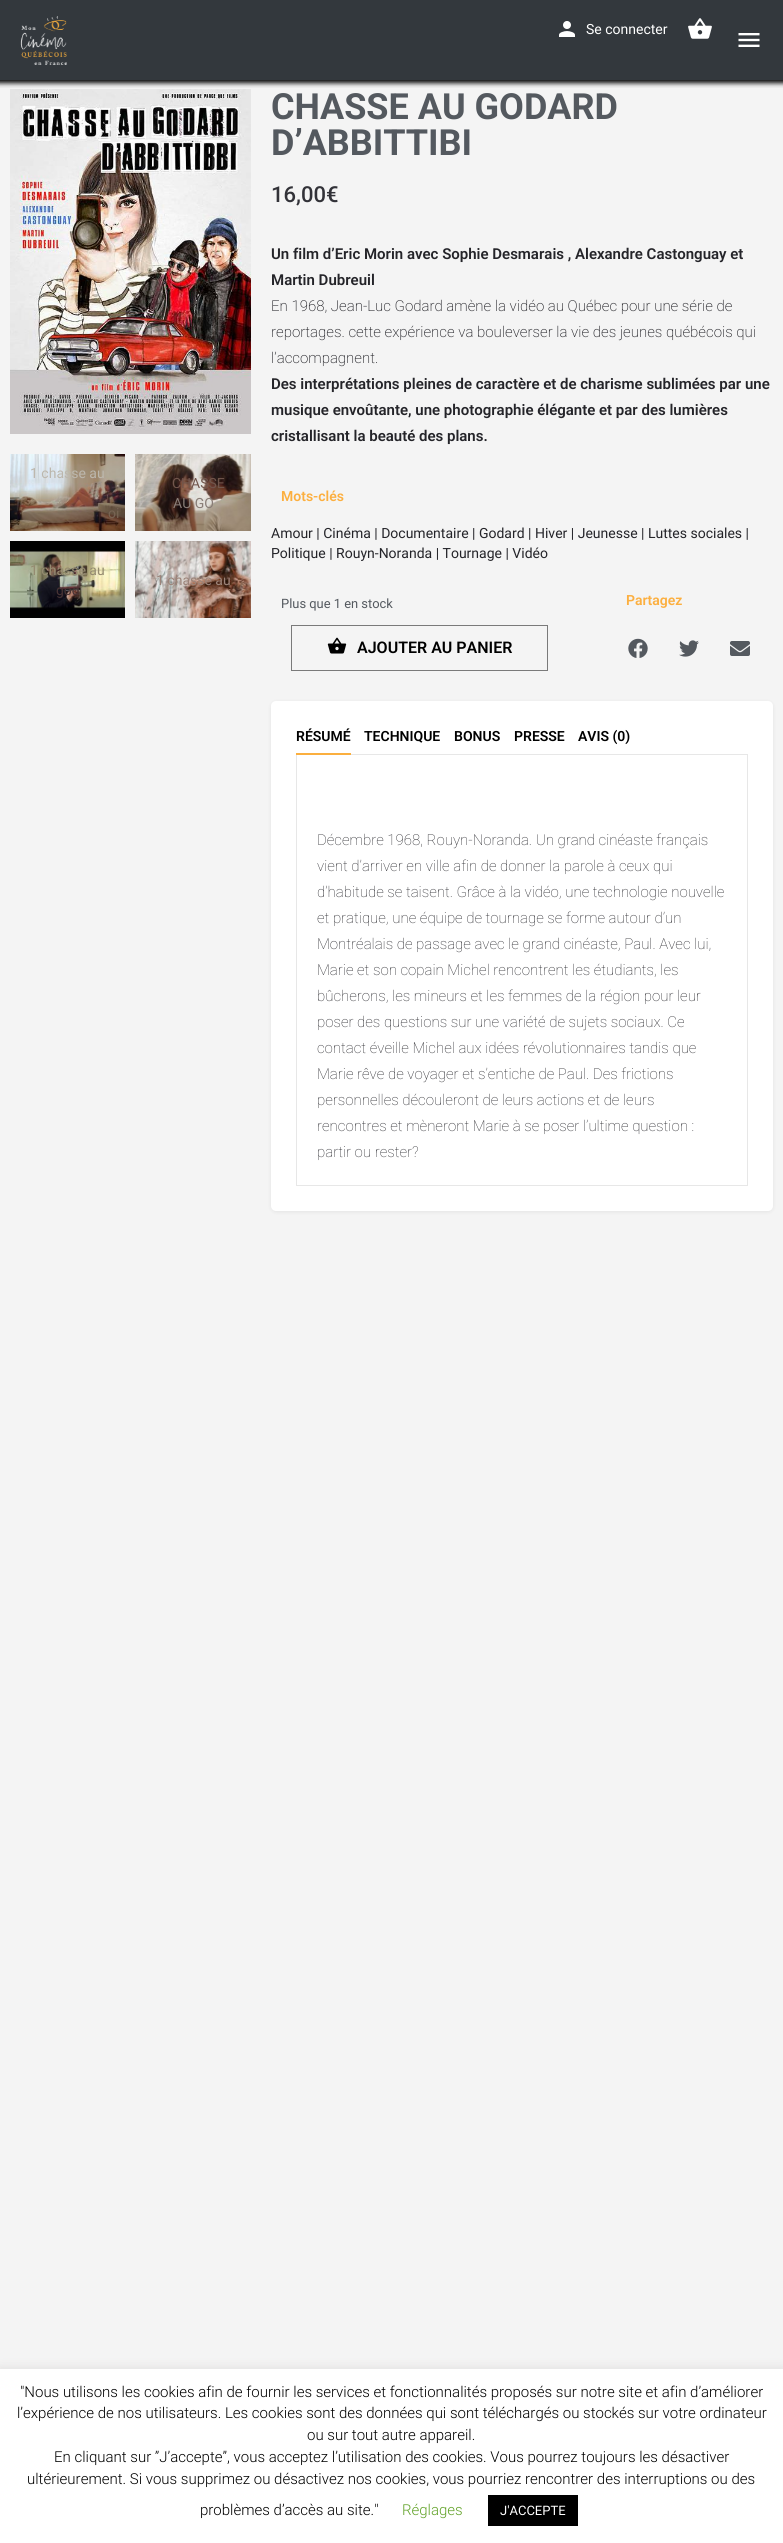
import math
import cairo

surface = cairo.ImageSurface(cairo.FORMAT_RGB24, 783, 2543)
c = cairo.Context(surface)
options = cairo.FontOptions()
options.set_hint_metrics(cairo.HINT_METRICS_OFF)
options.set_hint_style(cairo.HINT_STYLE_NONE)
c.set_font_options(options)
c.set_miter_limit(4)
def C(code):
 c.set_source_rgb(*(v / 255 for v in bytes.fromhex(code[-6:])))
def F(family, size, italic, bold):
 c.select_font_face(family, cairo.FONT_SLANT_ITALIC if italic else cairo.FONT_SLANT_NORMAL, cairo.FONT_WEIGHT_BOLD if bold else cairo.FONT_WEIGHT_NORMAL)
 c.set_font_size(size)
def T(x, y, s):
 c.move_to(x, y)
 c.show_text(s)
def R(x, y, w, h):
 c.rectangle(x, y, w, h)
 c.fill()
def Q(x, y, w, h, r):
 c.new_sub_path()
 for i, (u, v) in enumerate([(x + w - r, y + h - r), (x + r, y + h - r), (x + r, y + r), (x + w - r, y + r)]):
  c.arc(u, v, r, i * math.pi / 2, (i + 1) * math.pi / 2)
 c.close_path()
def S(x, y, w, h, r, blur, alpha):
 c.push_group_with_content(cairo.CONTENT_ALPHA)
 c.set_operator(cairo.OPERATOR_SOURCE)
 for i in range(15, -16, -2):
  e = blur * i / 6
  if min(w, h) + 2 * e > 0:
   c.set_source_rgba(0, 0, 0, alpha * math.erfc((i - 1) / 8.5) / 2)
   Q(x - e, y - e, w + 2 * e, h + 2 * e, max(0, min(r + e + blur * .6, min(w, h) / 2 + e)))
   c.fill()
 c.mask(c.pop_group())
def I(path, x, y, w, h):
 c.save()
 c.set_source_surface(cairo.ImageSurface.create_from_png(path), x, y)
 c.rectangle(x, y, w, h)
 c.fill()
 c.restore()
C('f4f4f4')
c.paint()
C('33383d')
R(0,0,783,80)
I('5.png',10,89,241,345)
c.save()
c.rectangle(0,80,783,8)
c.clip()
C('000000')
S(-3,-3,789,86,0,2.5,1)
c.restore()
I('1.png',20,16,47,49)
I('2.png',738,33,22,14)
I('3.png',559,21,16,16)
F('Roboto',14,0,0)
C('ffffff')
T(586,34,'Se connecter')
I('4.png',688,18,24,21)
I('6.png',10,454,115,77)
C('bcb7ad')
T(30,478,'1 chasse au')
C('776453')
T(108,518,'oi')
I('7.png',135,454,116,77)
C('71564c')
T(172,488,'CHASSE')
C('897d77')
T(173,508,'AU GO')
I('8.png',10,541,115,77)
C('958b70')
T(30,575,'1 chasse au')
C('473334')
T(56,595,'god')
I('9.png',135,541,116,77)
C('9c8479')
T(156,585,'1 chasse au')
F('Roboto',36,0,1)
C('54595f')
T(271,119,'CHASSE AU GODARD')
T(271,155,'D’ABBITTIBI')
F('Roboto Medium',22,0,0)
C('323238')
T(271,202,'16,00€')
F('Roboto SemiBold',15,0,0)
C('242429')
T(271,259,'Un film d’Eric Morin avec Sophie Desmarais , Alexandre Castonguay et')
T(271,285,'Martin Dubreuil')
F('Roboto ExtraLight',15,0,0)
T(271,311,'En 1968, Jean-Luc Godard amène la vidéo au Québec pour une série de')
T(271,337,'reportages. cette expérience va bouleverser la vie des jeunes québécois qui')
T(271,363,'l’accompagnent.')
F('Roboto SemiBold',15,0,0)
T(271,389,'Des interprétations pleines de caractère et de charisme sublimées par une')
T(271,415,'musique envoûtante, une photographie élégante et par des lumières')
T(271,441,'cristallisant la beauté des plans.')
F('Roboto SemiBold',14,0,0)
C('fcaf3f')
T(281,501,'Mots-clés')
F('Roboto',14,0,0)
C('242429')
T(271,538,'Amour | Cinéma | Documentaire | Godard | Hiver | Jeunesse | Luttes sociales |')
T(271,558,'Politique | Rouyn-Noranda | Tournage | Vidéo')
F('Roboto',12.9,0,0)
C('54595f')
T(281,608,'Plus que 1 en stock')
c.rectangle(291.5,625.5,256,45)
C('7a7a7a')
c.set_line_width(1)
c.stroke()
I('10.png',327,637,20,17)
F('Roboto SemiBold',16,0,0)
C('000000')
T(357,653,'AJOUTER AU PANIER')
F('Roboto SemiBold',14,0,0)
C('fcaf3f')
T(626,605,'Partagez')
I('11.png',628,638,20,20)
I('12.png',679,640,20,17)
I('13.png',730,641,20,15)
C('000000')
S(271,702,502,510,5,2,.07)
C('ffffff')
Q(271,701,502,510,5)
c.fill()
c.rectangle(296.5,754.5,451,431)
C('e7e7e7')
c.stroke()
C('fbaf3f')
R(296,753,55,2)
C('000000')
T(296,741,'RÉSUMÉ')
T(364,741,'TECHNIQUE')
T(454,741,'BONUS')
T(514,741,'PRESSE')
T(578,741,'AVIS (0)')
F('Roboto Thin',15,0,0)
C('242429')
T(317,845,'Décembre 1968, Rouyn-Noranda. Un grand cinéaste français')
T(317,871,'vient d’arriver en ville afin de donner la parole à ceux qui')
T(317,897,'d’habitude se taisent. Grâce à la vidéo, une technologie nouvelle')
T(317,923,'et pratique, une équipe de tournage se forme autour d’un')
T(317,949,'Montréalais de passage avec le grand cinéaste, Paul. Avec lui,')
T(317,975,'Marie et son copain Michel rencontrent les étudiants, les')
T(317,1001,'bûcherons, les mineurs et les femmes de la région pour leur')
T(317,1027,'poser des questions sur une variété de sujets sociaux. Ce')
T(317,1053,'contact éveille Michel aux idées révolutionnaires tandis que')
T(317,1079,'Marie rêve de voyager et s’entiche de Paul. Des frictions')
T(317,1105,'personnelles découleront de leurs actions et de leurs')
T(317,1131,'rencontres et mèneront Marie à se poser l’ultime question :')
T(317,1157,'partir ou rester?')
C('acabab')
S(0,2368,783,174,0,5,.3)
C('ffffff')
R(0,2369,783,174)
F('Roboto Light',15,0,0)
C('000000')
T(20,2397,'"Nous utilisons les cookies afin de fournir les services et fonctionnalités proposés sur notre site et afin d’améliorer')
T(17,2418,'l’expérience de nos utilisateurs. Les cookies sont des données qui sont téléchargés ou stockés sur votre ordinateur')
T(307,2440,'ou sur tout autre appareil.')
T(54,2462,'En cliquant sur ”J’accepte”, vous acceptez l’utilisation des cookies. Vous pourrez toujours les désactiver')
T(27,2484,'ultérieurement. Si vous supprimez ou désactivez nos cookies, vous pourriez rencontrer des interruptions ou des')
T(200,2515,'problèmes d’accès au site."')
C('62a329')
T(402,2515,'Réglages')
C('000000')
R(488,2495,90,31)
F('Roboto',13,0,0)
C('ffffff')
T(500,2515,'J\'ACCEPTE')
surface.write_to_png('o.png')
